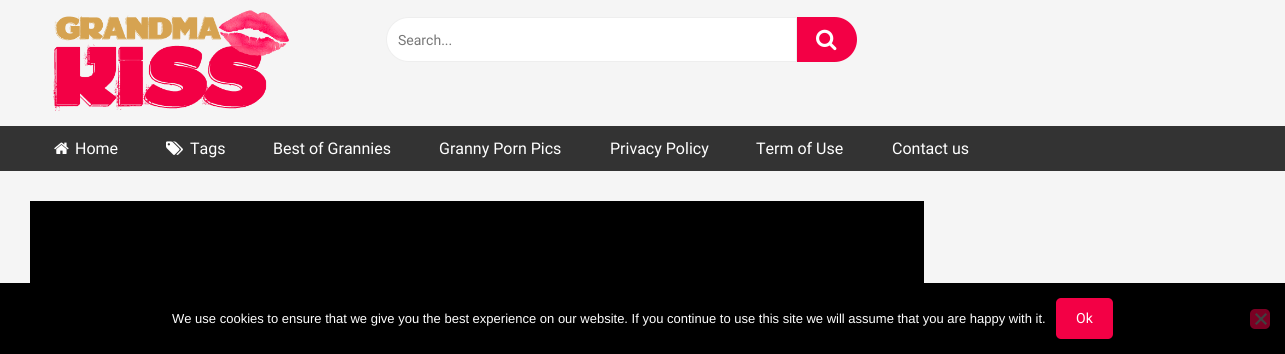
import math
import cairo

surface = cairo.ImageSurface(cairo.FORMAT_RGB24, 1285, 354)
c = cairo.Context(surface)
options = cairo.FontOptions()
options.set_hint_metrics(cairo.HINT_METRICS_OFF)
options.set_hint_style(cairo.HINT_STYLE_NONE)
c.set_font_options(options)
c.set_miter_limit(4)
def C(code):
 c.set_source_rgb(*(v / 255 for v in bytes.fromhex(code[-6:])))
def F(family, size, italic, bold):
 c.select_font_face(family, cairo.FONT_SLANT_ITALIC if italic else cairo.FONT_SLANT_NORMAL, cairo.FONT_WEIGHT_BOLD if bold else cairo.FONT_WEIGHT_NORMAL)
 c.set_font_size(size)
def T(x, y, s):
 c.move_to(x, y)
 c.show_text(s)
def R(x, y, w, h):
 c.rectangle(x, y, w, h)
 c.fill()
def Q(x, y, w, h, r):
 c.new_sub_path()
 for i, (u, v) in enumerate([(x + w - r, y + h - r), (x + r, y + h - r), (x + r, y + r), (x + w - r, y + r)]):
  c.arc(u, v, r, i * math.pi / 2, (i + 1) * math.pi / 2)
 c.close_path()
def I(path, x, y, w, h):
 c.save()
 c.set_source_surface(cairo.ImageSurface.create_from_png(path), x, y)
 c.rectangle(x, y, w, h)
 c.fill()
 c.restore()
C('f5f5f5')
c.paint()
I('1.png',53,10,236,101)
C('ffffff')
c.new_path()
c.move_to(408.5,17.5)
c.line_to(796.5,17.5)
c.line_to(796.5,61.5)
c.line_to(408.5,61.5)
c.curve_to(396.5,61.5,386.5,51.5,386.5,39.5)
c.curve_to(386.5,27.5,396.5,17.5,408.5,17.5)
c.close_path()
c.fill_preserve()
C('eeeeee')
c.set_line_width(1)
c.stroke()
F('Roboto',14,0,0)
C('777777')
T(398,45,'Search...')
C('f30045')
c.new_path()
c.move_to(797,17)
c.line_to(834.5,17)
c.curve_to(847,17,857,27,857,39.5)
c.curve_to(857,52,847,62,834.5,62)
c.line_to(797,62)
c.close_path()
c.fill()
I('2.png',816,29,21,22)
C('333333')
R(0,126,1285,45)
I('3.png',54,142,15,12)
F('Roboto',16,0,0)
C('ffffff')
T(75,154,'Home')
I('4.png',166,141,17,14)
T(190,154,'Tags')
T(273,154,'Best of Grannies')
T(439,154,'Granny Porn Pics')
T(610,154,'Privacy Policy')
T(756,154,'Term of Use')
T(892,154,'Contact us')
C('000000')
R(30,201,894,82)
R(0,283,1285,71)
F('Liberation Sans',13,0,0)
C('ffffff')
T(172,323,'We use cookies to ensure that we give you the best experience on our website. If you continue to use this site we will assume that you are happy with it.')
C('f30045')
Q(1056,298,57,41,5)
c.fill()
F('Roboto',14,0,0)
C('ffffff')
T(1076,323,'Ok')
C('7a0023')
Q(1250,309,20,20,5)
c.fill()
C('404040')
c.new_path()
c.move_to(1265.5,313)
c.line_to(1267,314.5)
c.line_to(1256.5,325)
c.line_to(1255,323.5)
c.close_path()
c.fill()
c.new_path()
c.move_to(1255,314.5)
c.line_to(1256.5,313)
c.line_to(1267,323.5)
c.line_to(1265.5,325)
c.close_path()
c.fill()
surface.write_to_png('o.png')
